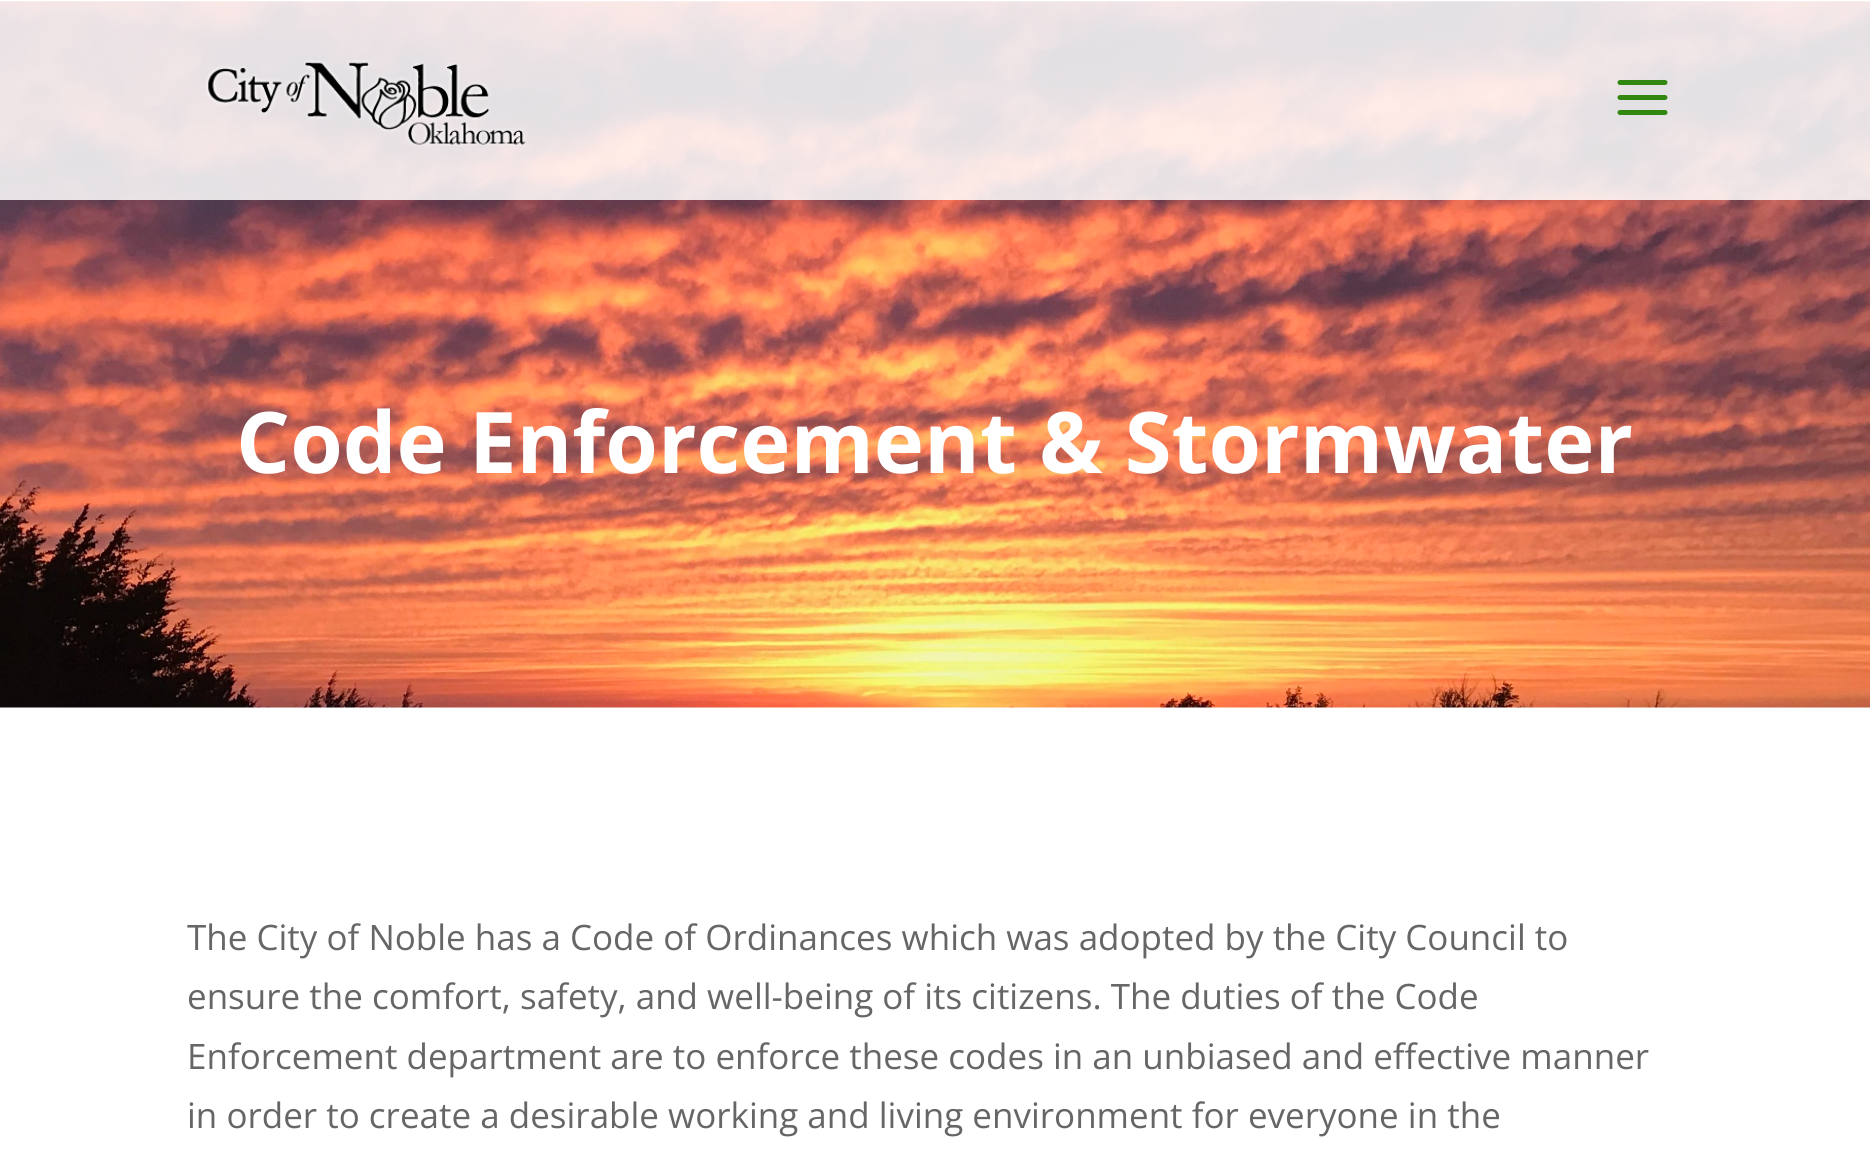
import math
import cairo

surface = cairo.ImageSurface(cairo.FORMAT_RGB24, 1870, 1161)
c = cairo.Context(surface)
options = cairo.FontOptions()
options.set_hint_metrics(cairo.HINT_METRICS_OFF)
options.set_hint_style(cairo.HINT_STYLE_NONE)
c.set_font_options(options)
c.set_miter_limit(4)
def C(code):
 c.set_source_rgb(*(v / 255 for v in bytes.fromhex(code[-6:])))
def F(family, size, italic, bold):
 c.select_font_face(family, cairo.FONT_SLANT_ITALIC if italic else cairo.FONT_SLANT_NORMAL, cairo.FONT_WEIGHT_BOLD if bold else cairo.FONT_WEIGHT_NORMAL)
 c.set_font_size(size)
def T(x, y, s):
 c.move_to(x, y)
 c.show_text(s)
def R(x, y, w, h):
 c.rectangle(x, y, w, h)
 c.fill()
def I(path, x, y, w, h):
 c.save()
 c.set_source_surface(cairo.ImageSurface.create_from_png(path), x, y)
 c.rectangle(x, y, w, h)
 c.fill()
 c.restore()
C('ffffff')
c.paint()
I('3.png',0,1,1870,707)
c.set_source_rgba(1,1,1,0.85)
R(0,1,1870,199)
I('1.png',206,60,320,86)
I('2.png',1617,80,51,35)
F('Open Sans',85,0,1)
C('ffffff')
T(236,473,'Code Enforcement & Stormwater')
F('Open Sans',35,0,0)
C('666666')
T(187,950,'The City of Noble has a Code of Ordinances which was adopted by the City Council to')
T(187,1009,'ensure the comfort, safety, and well-being of its citizens. The duties of the Code')
T(187,1069,'Enforcement department are to enforce these codes in an unbiased and effective manner')
T(187,1128,'in order to create a desirable working and living environment for everyone in the')
surface.write_to_png('o.png')
